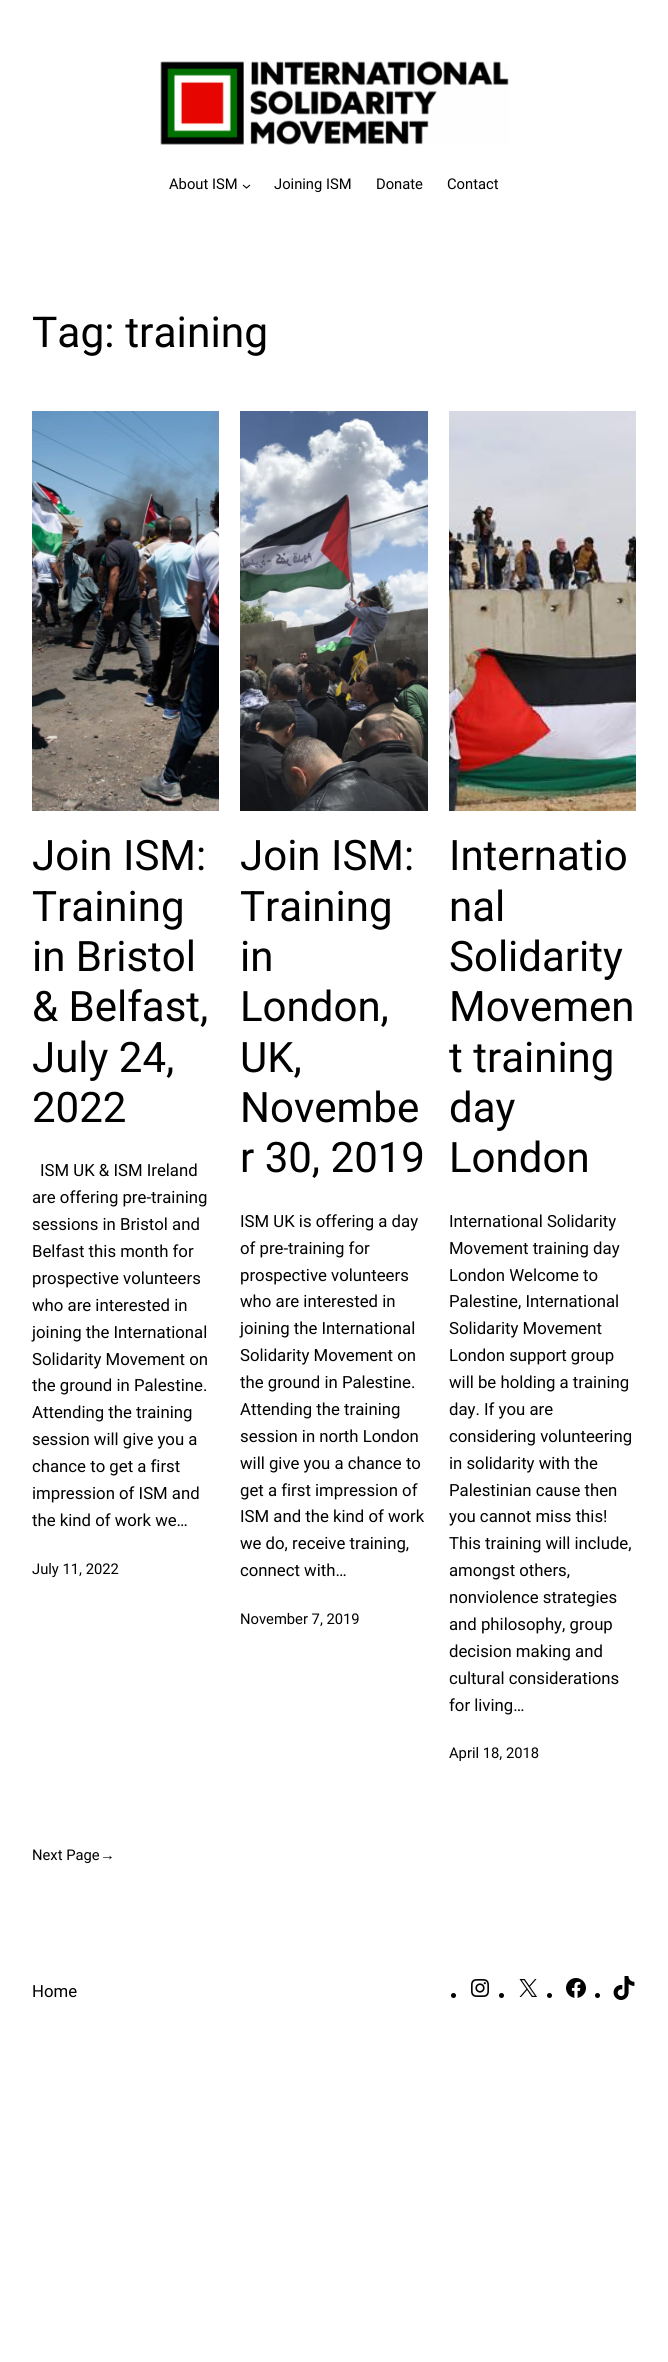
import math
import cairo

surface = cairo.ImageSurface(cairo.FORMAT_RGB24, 668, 2362)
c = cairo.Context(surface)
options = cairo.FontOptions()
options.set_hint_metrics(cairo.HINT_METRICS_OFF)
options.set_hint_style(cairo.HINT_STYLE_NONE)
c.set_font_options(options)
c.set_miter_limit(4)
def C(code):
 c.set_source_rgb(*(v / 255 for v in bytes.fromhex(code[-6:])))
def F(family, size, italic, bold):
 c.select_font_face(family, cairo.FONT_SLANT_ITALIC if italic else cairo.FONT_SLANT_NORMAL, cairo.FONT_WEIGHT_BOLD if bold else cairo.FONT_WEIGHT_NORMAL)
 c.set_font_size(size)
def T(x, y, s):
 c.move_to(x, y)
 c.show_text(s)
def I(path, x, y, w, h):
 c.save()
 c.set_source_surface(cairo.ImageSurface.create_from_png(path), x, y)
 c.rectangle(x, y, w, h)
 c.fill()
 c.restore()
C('ffffff')
c.paint()
I('1.png',160,61,349,84)
F('Roboto',14.75,0,0)
C('000000')
T(169,189,'About ISM')
c.new_path()
c.move_to(243,185)
c.line_to(246.5,188)
c.line_to(250,185)
c.set_line_width(1.1)
c.stroke()
T(274,189,'Joining ISM')
T(376,189,'Donate')
T(447,189,'Contact')
F('Roboto',42.5,0,0)
T(32,347,'Tag: training')
I('2.png',32,411,187,400)
F('Roboto',42,0,0)
T(32,870,'Join ISM:')
T(32,921,'Training')
T(32,971,'in Bristol')
T(32,1021,'& Belfast,')
T(32,1072,'July 24,')
T(32,1122,'2022')
F('Roboto',16.75,0,0)
T(40,1176,'ISM UK & ISM Ireland')
T(32,1203,'are offering pre-training')
T(32,1230,'sessions in Bristol and')
T(32,1257,'Belfast this month for')
T(32,1284,'prospective volunteers')
T(32,1311,'who are interested in')
T(32,1338,'joining the International')
T(32,1365,'Solidarity Movement on')
T(32,1391,'the ground in Palestine.')
T(32,1418,'Attending the training')
T(32,1445,'session will give you a')
T(32,1472,'chance to get a first')
T(32,1499,'impression of ISM and')
T(32,1526,'the kind of work we…')
F('Roboto',14.75,0,0)
T(32,1574,'July 11, 2022')
I('3.png',240,411,188,400)
F('Roboto',42,0,0)
T(240,870,'Join ISM:')
T(240,921,'Training')
T(240,971,'in')
T(240,1021,'London,')
T(240,1072,'UK,')
T(240,1122,'Novembe')
T(240,1172,'r 30, 2019')
F('Roboto',16.75,0,0)
T(240,1227,'ISM UK is offering a day')
T(240,1254,'of pre-training for')
T(240,1281,'prospective volunteers')
T(240,1307,'who are interested in')
T(240,1334,'joining the International')
T(240,1361,'Solidarity Movement on')
T(240,1388,'the ground in Palestine.')
T(240,1415,'Attending the training')
T(240,1442,'session in north London')
T(240,1469,'will give you a chance to')
T(240,1496,'get a first impression of')
T(240,1522,'ISM and the kind of work')
T(240,1549,'we do, receive training,')
T(240,1576,'connect with…')
F('Roboto',14.75,0,0)
T(240,1624,'November 7, 2019')
I('4.png',449,411,187,400)
F('Roboto',42,0,0)
T(449,870,'Internatio')
T(449,921,'nal')
T(449,971,'Solidarity')
T(449,1021,'Movemen')
T(449,1072,'t training')
T(449,1122,'day')
T(449,1172,'London')
F('Roboto',16.75,0,0)
T(449,1227,'International Solidarity')
T(449,1254,'Movement training day')
T(449,1281,'London Welcome to')
T(449,1307,'Palestine, International')
T(449,1334,'Solidarity Movement')
T(449,1361,'London support group')
T(449,1388,'will be holding a training')
T(449,1415,'day. If you are')
T(449,1442,'considering volunteering')
T(449,1469,'in solidarity with the')
T(449,1496,'Palestinian cause then')
T(449,1522,'you cannot miss this!')
T(449,1549,'This training will include,')
T(449,1576,'amongst others,')
T(449,1603,'nonviolence strategies')
T(449,1630,'and philosophy, group')
T(449,1657,'decision making and')
T(449,1684,'cultural considerations')
T(449,1711,'for living…')
F('Roboto',14.75,0,0)
T(449,1758,'April 18, 2018')
T(32,1860,'Next Page')
F('Liberation Sans',14.75,0,0)
T(100,1860,'→')
F('Roboto',16.75,0,0)
T(32,1997,'Home')
c.new_path()
c.arc(453.5,1995.5,2.5,0,2 * math.pi)
c.fill()
I('5.png',471,1979,18,18)
c.arc(501.5,1995.5,2.5,0,2 * math.pi)
c.fill()
I('6.png',519,1979,18,18)
c.arc(549.5,1995.5,2.5,0,2 * math.pi)
c.fill()
I('7.png',566,1978,20,20)
c.arc(597.5,1995.5,2.5,0,2 * math.pi)
c.fill()
I('8.png',613,1976,22,24)
surface.write_to_png('o.png')
